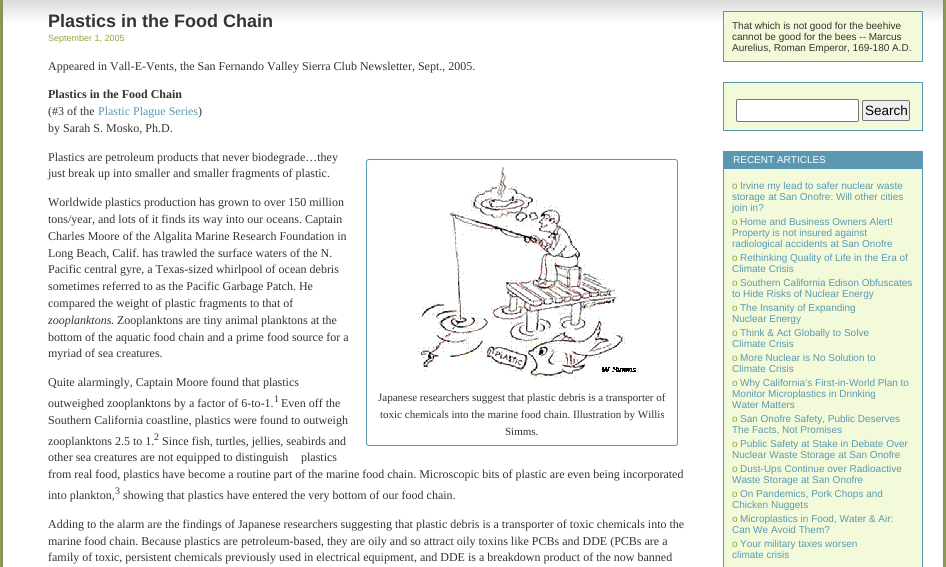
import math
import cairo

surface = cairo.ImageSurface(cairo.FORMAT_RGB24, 946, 567)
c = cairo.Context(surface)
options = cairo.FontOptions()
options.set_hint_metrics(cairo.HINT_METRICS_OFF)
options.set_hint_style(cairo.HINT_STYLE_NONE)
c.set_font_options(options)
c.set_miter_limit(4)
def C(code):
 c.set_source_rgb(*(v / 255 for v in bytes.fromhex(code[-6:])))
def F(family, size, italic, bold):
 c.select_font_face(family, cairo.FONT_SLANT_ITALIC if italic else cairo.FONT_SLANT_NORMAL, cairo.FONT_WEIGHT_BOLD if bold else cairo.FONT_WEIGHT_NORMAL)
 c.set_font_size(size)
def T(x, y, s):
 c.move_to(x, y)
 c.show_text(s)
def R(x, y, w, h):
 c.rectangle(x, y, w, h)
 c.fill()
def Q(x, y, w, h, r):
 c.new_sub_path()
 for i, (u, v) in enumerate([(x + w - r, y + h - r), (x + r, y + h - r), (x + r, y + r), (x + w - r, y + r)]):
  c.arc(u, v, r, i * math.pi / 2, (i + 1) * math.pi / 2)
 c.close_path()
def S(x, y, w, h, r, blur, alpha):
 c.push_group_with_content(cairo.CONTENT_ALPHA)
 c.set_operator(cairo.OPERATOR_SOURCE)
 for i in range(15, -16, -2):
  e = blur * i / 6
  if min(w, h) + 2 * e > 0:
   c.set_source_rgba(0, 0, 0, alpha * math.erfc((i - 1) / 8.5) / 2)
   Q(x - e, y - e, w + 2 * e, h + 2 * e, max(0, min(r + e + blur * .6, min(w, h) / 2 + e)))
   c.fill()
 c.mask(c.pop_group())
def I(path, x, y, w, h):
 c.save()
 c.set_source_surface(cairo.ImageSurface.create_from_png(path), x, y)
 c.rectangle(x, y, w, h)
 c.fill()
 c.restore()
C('bcc971')
c.paint()
C('000000')
S(-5,-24,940,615,0,8,.3)
S(11,-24,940,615,0,8,.3)
C('ffffff')
R(3,22,940,545)
I('1.png',3,0,940,22)
F('Liberation Sans',18,0,1)
C('333333')
T(48,27,'Plastics in the Food Chain')
F('Liberation Sans',9,0,0)
C('92a839')
T(48,41,'September 1, 2005')
F('Liberation Serif',12,0,0)
C('333333')
T(48,70,'Appeared in Vall-E-Vents, the San Fernando Valley Sierra Club Newsletter, Sept., 2005.')
F('Liberation Serif',12,0,1)
T(48,98,'Plastics in the Food Chain')
F('Liberation Serif',12,0,0)
T(48,115,'(#3 of the')
C('5a98b1')
T(98,115,'Plastic Plague Series')
C('333333')
T(198,115,')')
T(48,132,'by Sarah S. Mosko, Ph.D.')
T(48,161,'Plastics are petroleum products that never biodegrade…they')
T(48,177,'just break up into smaller and smaller fragments of plastic.')
T(48,206,'Worldwide plastics production has grown to over 150 million')
T(48,223,'tons/year, and lots of it finds its way into our oceans. Captain')
T(48,240,'Charles Moore of the Algalita Marine Research Foundation in')
T(48,257,'Long Beach, Calif. has trawled the surface waters of the N.')
T(48,273,'Pacific central gyre, a Texas-sized whirlpool of ocean debris')
T(48,290,'sometimes referred to as the Pacific Garbage Patch. He')
T(48,307,'compared the weight of plastic fragments to that of')
F('Liberation Serif',12,1,0)
T(48,324,'zooplanktons')
F('Liberation Serif',12,0,0)
T(111,324,'. Zooplanktons are tiny animal planktons at the')
T(48,341,'bottom of the aquatic food chain and a prime food source for a')
T(48,357,'myriad of sea creatures.')
T(48,386,'Quite alarmingly, Captain Moore found that plastics')
T(48,407,'outweighed zooplanktons by a factor of 6-to-1.')
F('Liberation Serif',10,0,0)
T(274,402,'1')
F('Liberation Serif',12,0,0)
T(281,407,'Even off the')
T(48,424,'Southern California coastline, plastics were found to outweigh')
T(48,445,'zooplanktons 2.5 to 1.')
F('Liberation Serif',10,0,0)
T(154,440,'2')
F('Liberation Serif',12,0,0)
T(162,445,'Since fish, turtles, jellies, seabirds and')
T(48,461,'other sea creatures are not equipped to distinguish')
T(301,461,'plastics')
T(48,478,'from real food, plastics have become a routine part of the marine food chain. Microscopic bits of plastic are even being incorporated')
T(48,499,'into plankton,')
F('Liberation Serif',10,0,0)
T(115,494,'3')
F('Liberation Serif',12,0,0)
T(123,499,'showing that plastics have entered the very bottom of our food chain.')
Q(366.5,159.5,311,286,2.5)
C('5a98b1')
c.set_line_width(1)
c.stroke()
I('2.png',418,167,218,211)
F('Liberation Serif',11,0,0)
C('333333')
T(378,401,'Japanese researchers suggest that plastic debris is a transporter of')
T(380,418,'toxic chemicals into the marine food chain. Illustration by Willis')
T(505,435,'Simms.')
F('Liberation Serif',12,0,0)
T(48,528,'Adding to the alarm are the findings of Japanese researchers suggesting that plastic debris is a transporter of toxic chemicals into the')
T(48,545,'marine food chain. Because plastics are petroleum-based, they are oily and so attract oily toxins like PCBs and DDE (PCBs are a')
T(48,561,'family of toxic, persistent chemicals previously used in electrical equipment, and DDE is a breakdown product of the now banned')
C('f3fad9')
c.rectangle(723.5,11.5,199,50)
c.fill_preserve()
C('5a98b1')
c.stroke()
F('Liberation Sans',10,0,0)
C('333333')
T(732,29,'That which is not good for the beehive')
T(732,40,'cannot be good for the bees -- Marcus')
T(732,51,'Aurelius, Roman Emperor, 169-180 A.D.')
C('f3fad9')
c.rectangle(723.5,82.5,199,48)
c.fill_preserve()
C('5a98b1')
c.stroke()
C('ffffff')
Q(736.5,99.5,122,22,1.5)
c.fill_preserve()
C('767676')
c.stroke()
C('efefef')
Q(862.5,100.5,47,20,1.5)
c.fill_preserve()
C('767676')
c.stroke()
F('Liberation Sans',13.5,0,0)
C('000000')
T(865,115,'Search')
C('5a98b1')
R(723,151,200,17)
F('Liberation Sans',10,0,0)
C('ffffff')
T(733,163,'RECENT ARTICLES')
C('f3fad9')
c.rectangle(723.5,168.5,199,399)
c.fill_preserve()
C('5a98b1')
c.stroke()
C('92a839')
T(732,189,'o')
C('5a98b1')
T(740,189,'Irvine my lead to safer nuclear waste')
T(732,200,'storage at San Onofre: Will other cities')
T(732,211,'join in?')
C('92a839')
T(732,225,'o')
C('5a98b1')
T(740,225,'Home and Business Owners Alert!')
T(732,236,'Property is not insured against')
T(732,247,'radiological accidents at San Onofre')
C('92a839')
T(732,261,'o')
C('5a98b1')
T(740,261,'Rethinking Quality of Life in the Era of')
T(732,272,'Climate Crisis')
C('92a839')
T(732,286,'o')
C('5a98b1')
T(740,286,'Southern California Edison Obfuscates')
T(732,297,'to Hide Risks of Nuclear Energy')
C('92a839')
T(732,311,'o')
C('5a98b1')
T(740,311,'The Insanity of Expanding')
T(732,322,'Nuclear Energy')
C('92a839')
T(732,336,'o')
C('5a98b1')
T(740,336,'Think & Act Globally to Solve')
T(732,347,'Climate Crisis')
C('92a839')
T(732,361,'o')
C('5a98b1')
T(740,361,'More Nuclear is No Solution to')
T(732,372,'Climate Crisis')
C('92a839')
T(732,386,'o')
C('5a98b1')
T(740,386,'Why California’s First-in-World Plan to')
T(732,397,'Monitor Microplastics in Drinking')
T(732,408,'Water Matters')
C('92a839')
T(732,422,'o')
C('5a98b1')
T(740,422,'San Onofre Safety, Public Deserves')
T(732,433,'The Facts, Not Promises')
C('92a839')
T(732,447,'o')
C('5a98b1')
T(740,447,'Public Safety at Stake in Debate Over')
T(732,458,'Nuclear Waste Storage at San Onofre')
C('92a839')
T(732,472,'o')
C('5a98b1')
T(740,472,'Dust-Ups Continue over Radioactive')
T(732,483,'Waste Storage at San Onofre')
C('92a839')
T(732,497,'o')
C('5a98b1')
T(740,497,'On Pandemics, Pork Chops and')
T(732,508,'Chicken Nuggets')
C('92a839')
T(732,522,'o')
C('5a98b1')
T(740,522,'Microplastics in Food, Water & Air:')
T(732,533,'Can We Avoid Them?')
C('92a839')
T(732,547,'o')
C('5a98b1')
T(740,547,'Your military taxes worsen')
T(732,558,'climate crisis')
surface.write_to_png('o.png')
